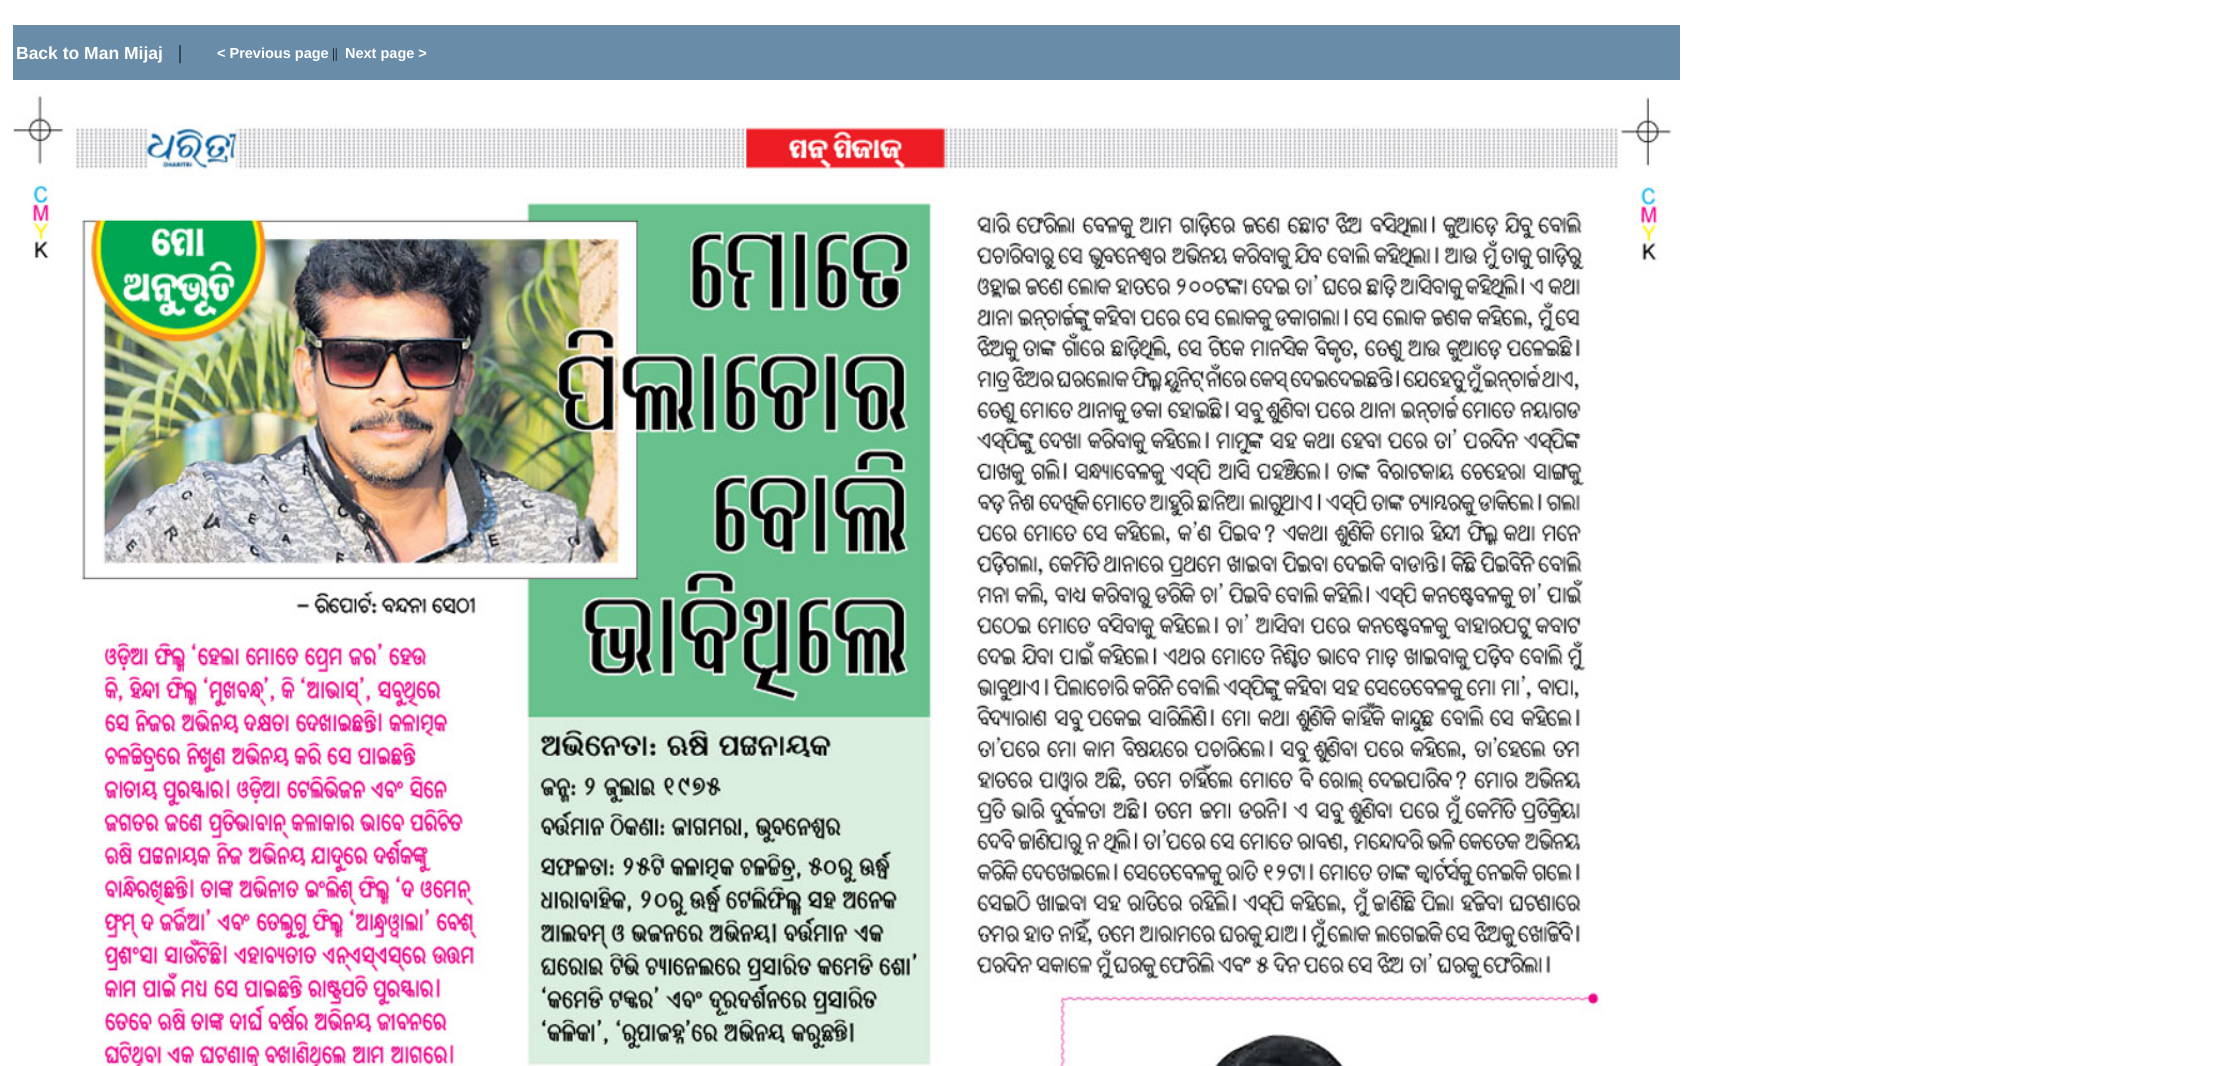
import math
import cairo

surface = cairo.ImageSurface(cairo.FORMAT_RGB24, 2240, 1066)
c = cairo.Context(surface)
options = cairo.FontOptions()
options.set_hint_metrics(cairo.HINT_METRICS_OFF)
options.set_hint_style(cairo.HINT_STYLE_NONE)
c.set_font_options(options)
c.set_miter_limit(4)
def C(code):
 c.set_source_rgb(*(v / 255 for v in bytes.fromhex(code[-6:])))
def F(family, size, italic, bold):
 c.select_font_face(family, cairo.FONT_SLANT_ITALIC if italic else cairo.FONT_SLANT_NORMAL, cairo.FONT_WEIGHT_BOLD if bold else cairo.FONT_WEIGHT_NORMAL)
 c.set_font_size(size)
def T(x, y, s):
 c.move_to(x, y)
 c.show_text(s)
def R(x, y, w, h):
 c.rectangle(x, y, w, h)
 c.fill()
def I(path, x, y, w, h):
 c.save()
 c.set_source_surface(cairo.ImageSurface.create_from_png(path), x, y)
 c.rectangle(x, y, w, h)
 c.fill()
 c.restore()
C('ffffff')
c.paint()
C('698ca8')
R(13,25,1667,55)
F('Liberation Sans',17.5,0,1)
C('ffffff')
T(16,59,'Back to Man Mijaj')
F('Liberation Serif',20,0,0)
C('000000')
T(178,59,'|')
F('Liberation Sans',14.5,0,1)
C('ffffff')
T(217,58,'< Previous page')
F('Liberation Serif',14,0,0)
C('000000')
T(332,58,'||')
F('Liberation Sans',14.5,0,1)
C('ffffff')
T(345,58,'Next page >')
I('1.png',13,94,1659,972)
surface.write_to_png('o.png')
